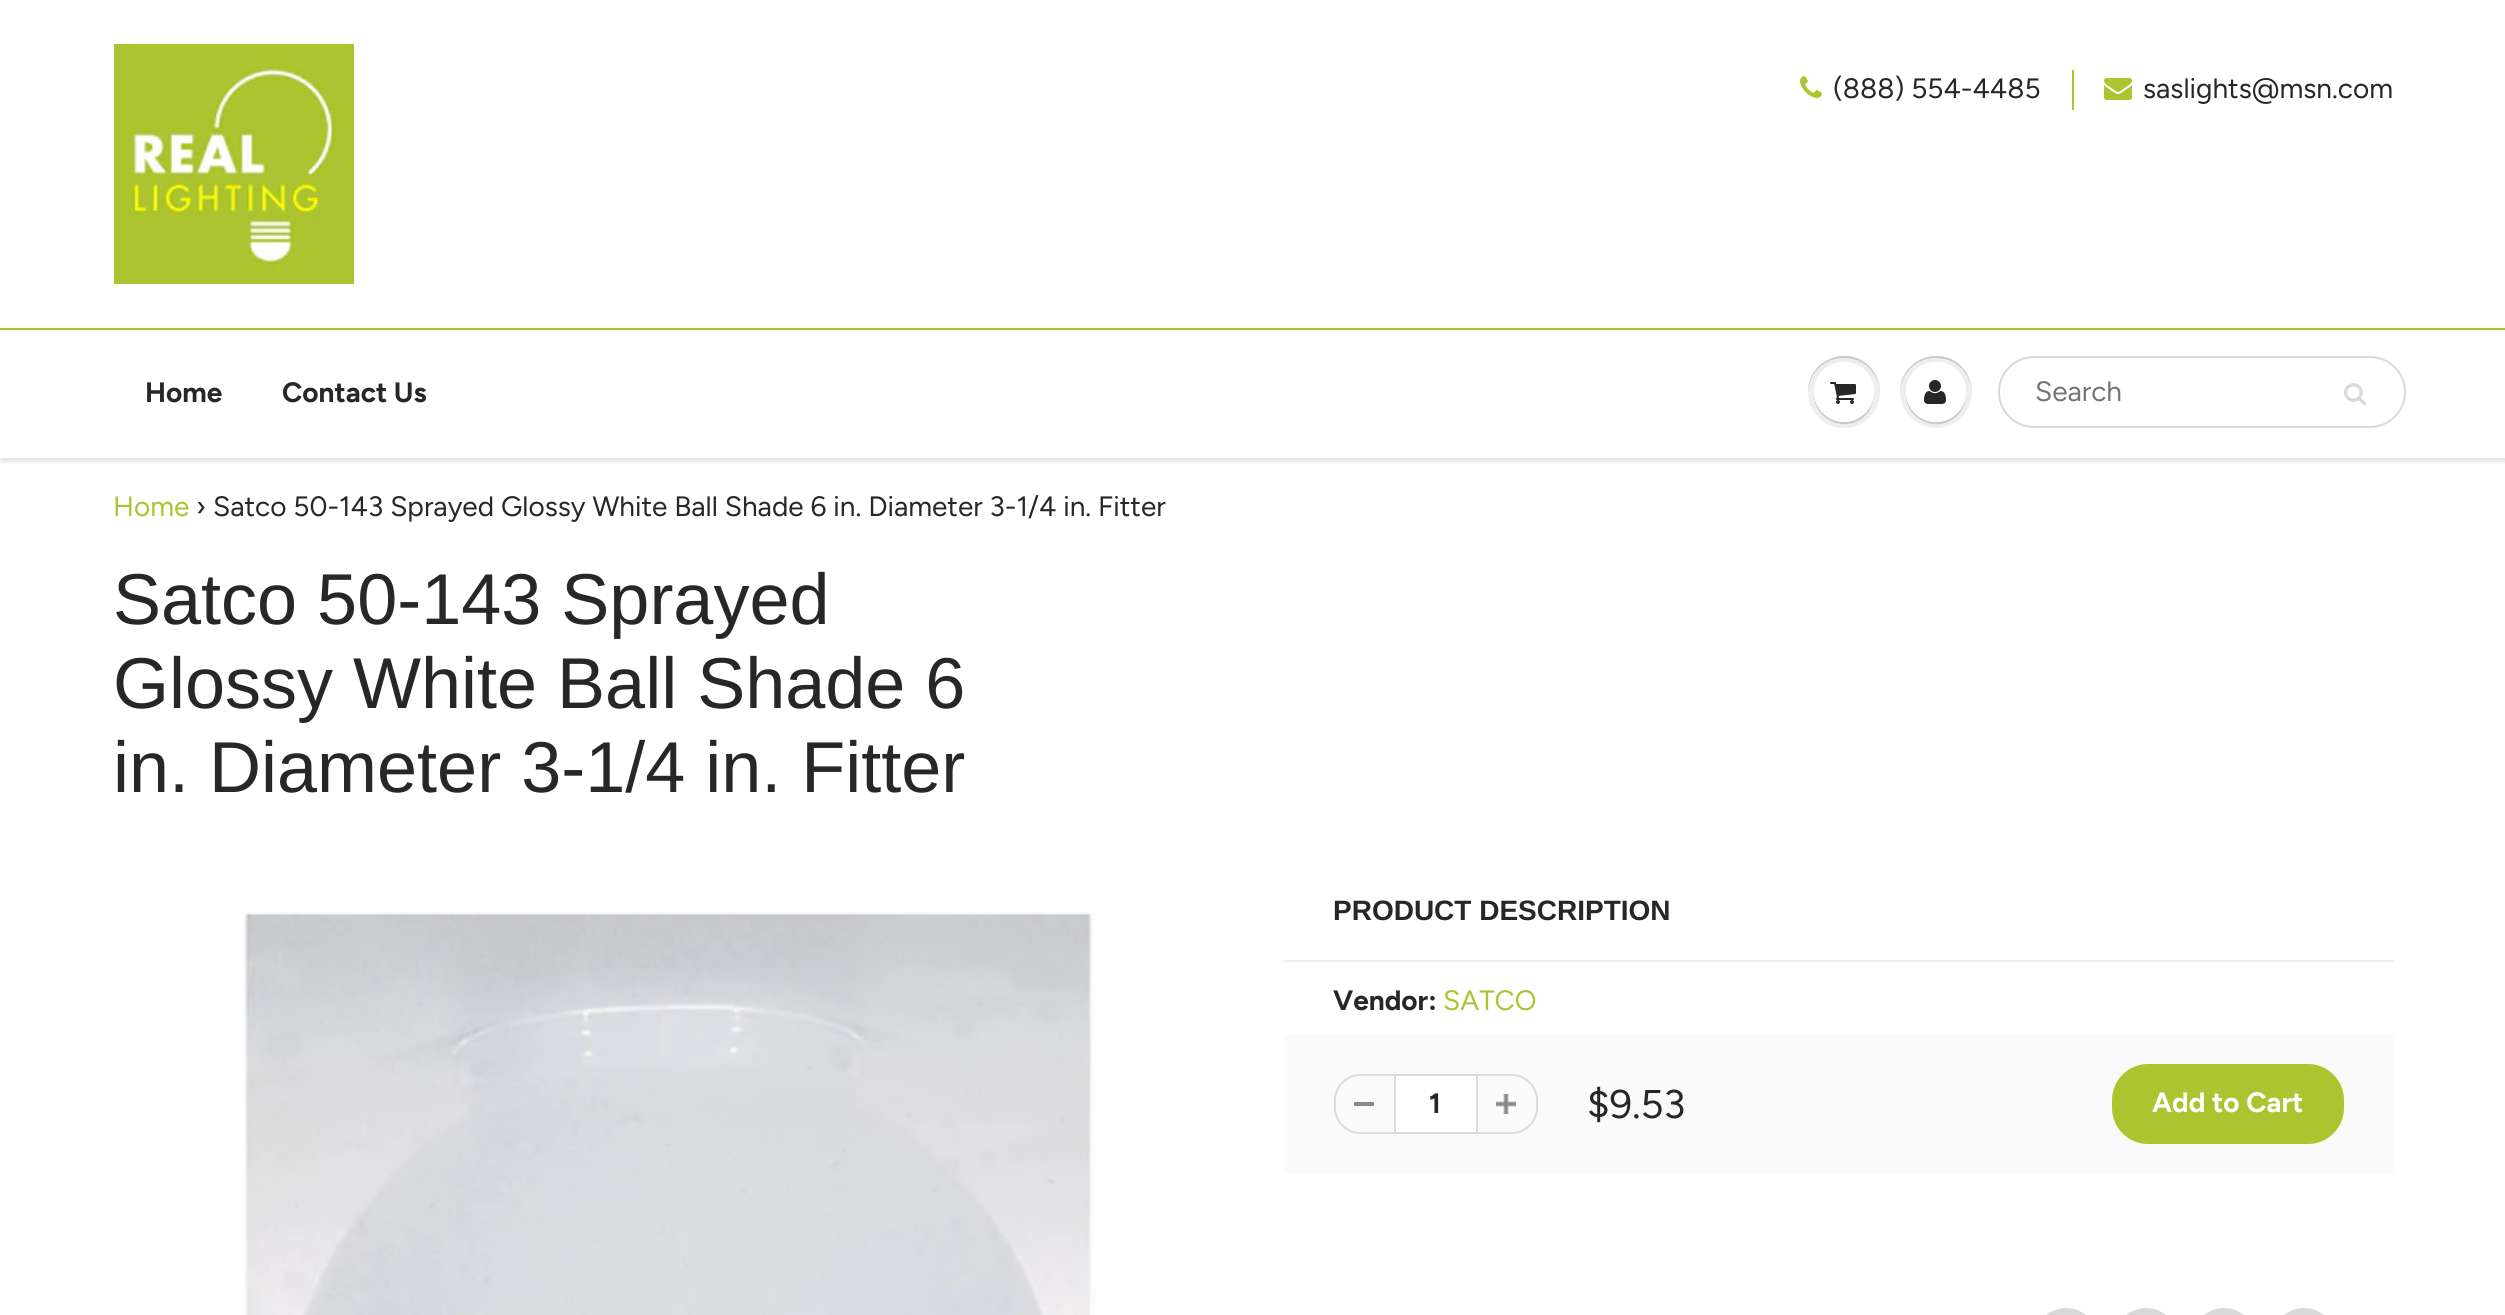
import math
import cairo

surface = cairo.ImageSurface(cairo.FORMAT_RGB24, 2505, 1315)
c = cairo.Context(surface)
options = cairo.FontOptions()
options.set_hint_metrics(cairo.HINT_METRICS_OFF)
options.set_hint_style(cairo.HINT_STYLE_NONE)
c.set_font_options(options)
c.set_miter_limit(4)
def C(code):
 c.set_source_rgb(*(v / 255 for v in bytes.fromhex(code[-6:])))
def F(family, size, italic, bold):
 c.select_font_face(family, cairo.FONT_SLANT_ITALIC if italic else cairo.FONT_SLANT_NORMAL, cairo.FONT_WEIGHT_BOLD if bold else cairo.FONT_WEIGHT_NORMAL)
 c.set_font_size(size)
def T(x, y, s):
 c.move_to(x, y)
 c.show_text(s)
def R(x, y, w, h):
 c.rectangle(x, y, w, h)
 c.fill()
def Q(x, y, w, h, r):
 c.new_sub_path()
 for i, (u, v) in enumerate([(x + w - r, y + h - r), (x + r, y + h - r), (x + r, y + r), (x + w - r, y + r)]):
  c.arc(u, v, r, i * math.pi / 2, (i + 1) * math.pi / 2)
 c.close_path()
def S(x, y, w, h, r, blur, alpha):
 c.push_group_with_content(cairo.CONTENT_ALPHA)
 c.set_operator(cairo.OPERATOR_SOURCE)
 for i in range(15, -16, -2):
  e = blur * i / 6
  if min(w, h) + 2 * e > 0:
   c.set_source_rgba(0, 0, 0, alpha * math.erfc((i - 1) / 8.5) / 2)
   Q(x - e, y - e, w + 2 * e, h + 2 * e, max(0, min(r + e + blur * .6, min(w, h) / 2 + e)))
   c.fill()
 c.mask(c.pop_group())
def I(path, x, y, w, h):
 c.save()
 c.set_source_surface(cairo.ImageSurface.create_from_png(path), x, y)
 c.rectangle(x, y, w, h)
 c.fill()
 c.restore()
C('ffffff')
c.paint()
I('1.png',114,44,240,240)
I('2.png',1800,76,22,22)
F('Figtree',28,0,0)
C('282727')
T(1833,98,'(888) 554-4485')
C('acc430')
R(2072,70,2,40)
I('3.png',2104,78,28,22)
C('282727')
T(2143,98,'saslights@msn.com')
c.save()
c.rectangle(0,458,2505,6)
c.clip()
C('0b191c')
S(0,332,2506,130,0,2,.12)
c.restore()
C('acc430')
R(0,328,2505,2)
F('Figtree',28,0,1)
C('282727')
T(145,402,'Home')
T(282,402,'Contact Us')
C('edefef')
c.new_path()
c.arc(1844,392,36,0,2 * math.pi)
c.fill()
C('c9cbcb')
c.new_path()
c.move_to(1874,393)
c.curve_to(1873,409,1860,422,1844,422)
c.curve_to(1828,422,1815,409,1814,393)
c.curve_to(1813,423,1852,436,1869,411)
c.curve_to(1872,406,1874,399,1874,393)
c.close_path()
c.fill()
c.new_path()
c.move_to(1844,358)
c.curve_to(1864,358,1879,373,1880,393)
c.curve_to(1880,386,1878,378,1874,372)
c.curve_to(1854,342,1807,357,1808,393)
c.curve_to(1809,373,1824,358,1844,358)
c.close_path()
c.fill()
C('ffffff')
c.arc(1844,392,30,0,2 * math.pi)
c.fill()
c.new_path()
c.move_to(1844,364)
c.curve_to(1861,364,1873,376,1874,393)
c.curve_to(1874,387,1872,380,1869,375)
c.curve_to(1852,350,1813,363,1814,393)
c.curve_to(1815,376,1827,364,1844,364)
c.close_path()
c.fill()
I('4.png',1830,382,26,22)
C('edefef')
c.arc(1936,392,36,0,2 * math.pi)
c.fill()
C('c9cbcb')
c.new_path()
c.move_to(1966,393)
c.curve_to(1965,409,1952,422,1936,422)
c.curve_to(1920,422,1907,409,1906,393)
c.curve_to(1905,423,1944,436,1961,411)
c.curve_to(1964,406,1966,399,1966,393)
c.close_path()
c.fill()
c.new_path()
c.move_to(1936,358)
c.curve_to(1956,358,1971,373,1972,393)
c.curve_to(1972,386,1970,378,1966,372)
c.curve_to(1946,342,1899,357,1900,393)
c.curve_to(1901,373,1916,358,1936,358)
c.close_path()
c.fill()
C('ffffff')
c.arc(1936,392,30,0,2 * math.pi)
c.fill()
c.new_path()
c.move_to(1936,364)
c.curve_to(1953,364,1965,376,1966,393)
c.curve_to(1966,387,1964,380,1961,375)
c.curve_to(1944,350,1905,363,1906,393)
c.curve_to(1907,376,1919,364,1936,364)
c.close_path()
c.fill()
I('5.png',1924,380,22,24)
Q(1999,357,406,70,35)
C('d7dbdb')
c.stroke()
F('Figtree',28,0,0)
C('757575')
T(2035,401,'Search')
I('6.png',2344,383,23,23)
C('acc430')
T(113,516,'Home')
C('282727')
T(196,516,'› Satco 50-143 Sprayed Glossy White Ball Shade 6 in. Diameter 3-1/4 in. Fitter')
F('Arimo',72,0,0)
T(113,624,'Satco 50-143 Sprayed')
T(113,708,'Glossy White Ball Shade 6')
T(113,792,'in. Diameter 3-1/4 in. Fitter')
I('7.png',243,912,853,403)
C('efefef')
R(1284,960,1110,2)
F('Arimo',28,0,1)
C('282727')
T(1333,920,'PRODUCT DESCRIPTION')
F('Figtree',28,0,1)
T(1333,1010,'Vendor:')
F('Figtree',28,0,0)
C('acc430')
T(1443,1010,'SATCO')
C('fafafa')
R(1284,1034,1110,140)
C('898989')
R(1354,1102,20,4)
C('d7dbdb')
c.set_fill_rule(cairo.FILL_RULE_EVEN_ODD)
c.new_path()
c.move_to(1360,1074)
c.line_to(1394,1074)
c.line_to(1394,1134)
c.line_to(1360,1134)
c.curve_to(1346,1134,1334,1122,1334,1108)
c.line_to(1334,1100)
c.curve_to(1334,1086,1346,1074,1360,1074)
c.close_path()
c.move_to(1360,1076)
c.line_to(1394,1076)
c.line_to(1394,1132)
c.line_to(1360,1132)
c.curve_to(1347,1132,1336,1121,1336,1108)
c.line_to(1336,1100)
c.curve_to(1336,1087,1347,1076,1360,1076)
c.close_path()
c.fill()
C('ffffff')
c.rectangle(1395,1075,82,58)
c.fill_preserve()
C('d7dbdb')
c.stroke()
F('Figtree',28,0,1)
C('282727')
T(1429,1113,'1')
I('8.png',1496,1094,20,20)
C('d7dbdb')
c.new_path()
c.move_to(1478,1074)
c.line_to(1512,1074)
c.curve_to(1526,1074,1538,1086,1538,1100)
c.line_to(1538,1108)
c.curve_to(1538,1122,1526,1134,1512,1134)
c.line_to(1478,1134)
c.close_path()
c.move_to(1478,1076)
c.line_to(1512,1076)
c.curve_to(1525,1076,1536,1087,1536,1100)
c.line_to(1536,1108)
c.curve_to(1536,1121,1525,1132,1512,1132)
c.line_to(1478,1132)
c.close_path()
c.fill()
F('Figtree',40,0,0)
C('282727')
T(1587,1118,'$9.53')
C('acc430')
Q(2112,1064,232,80,36)
c.fill()
F('Figtree',28,0,1)
C('ffffff')
T(2152,1112,'Add to Cart')
C('d9d9d9')
Q(2034,1308,64,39,32)
c.fill()
Q(2114,1308,64,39,32)
c.fill()
Q(2192,1308,64,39,32)
c.fill()
Q(2272,1308,64,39,32)
c.fill()
surface.write_to_png('o.png')
